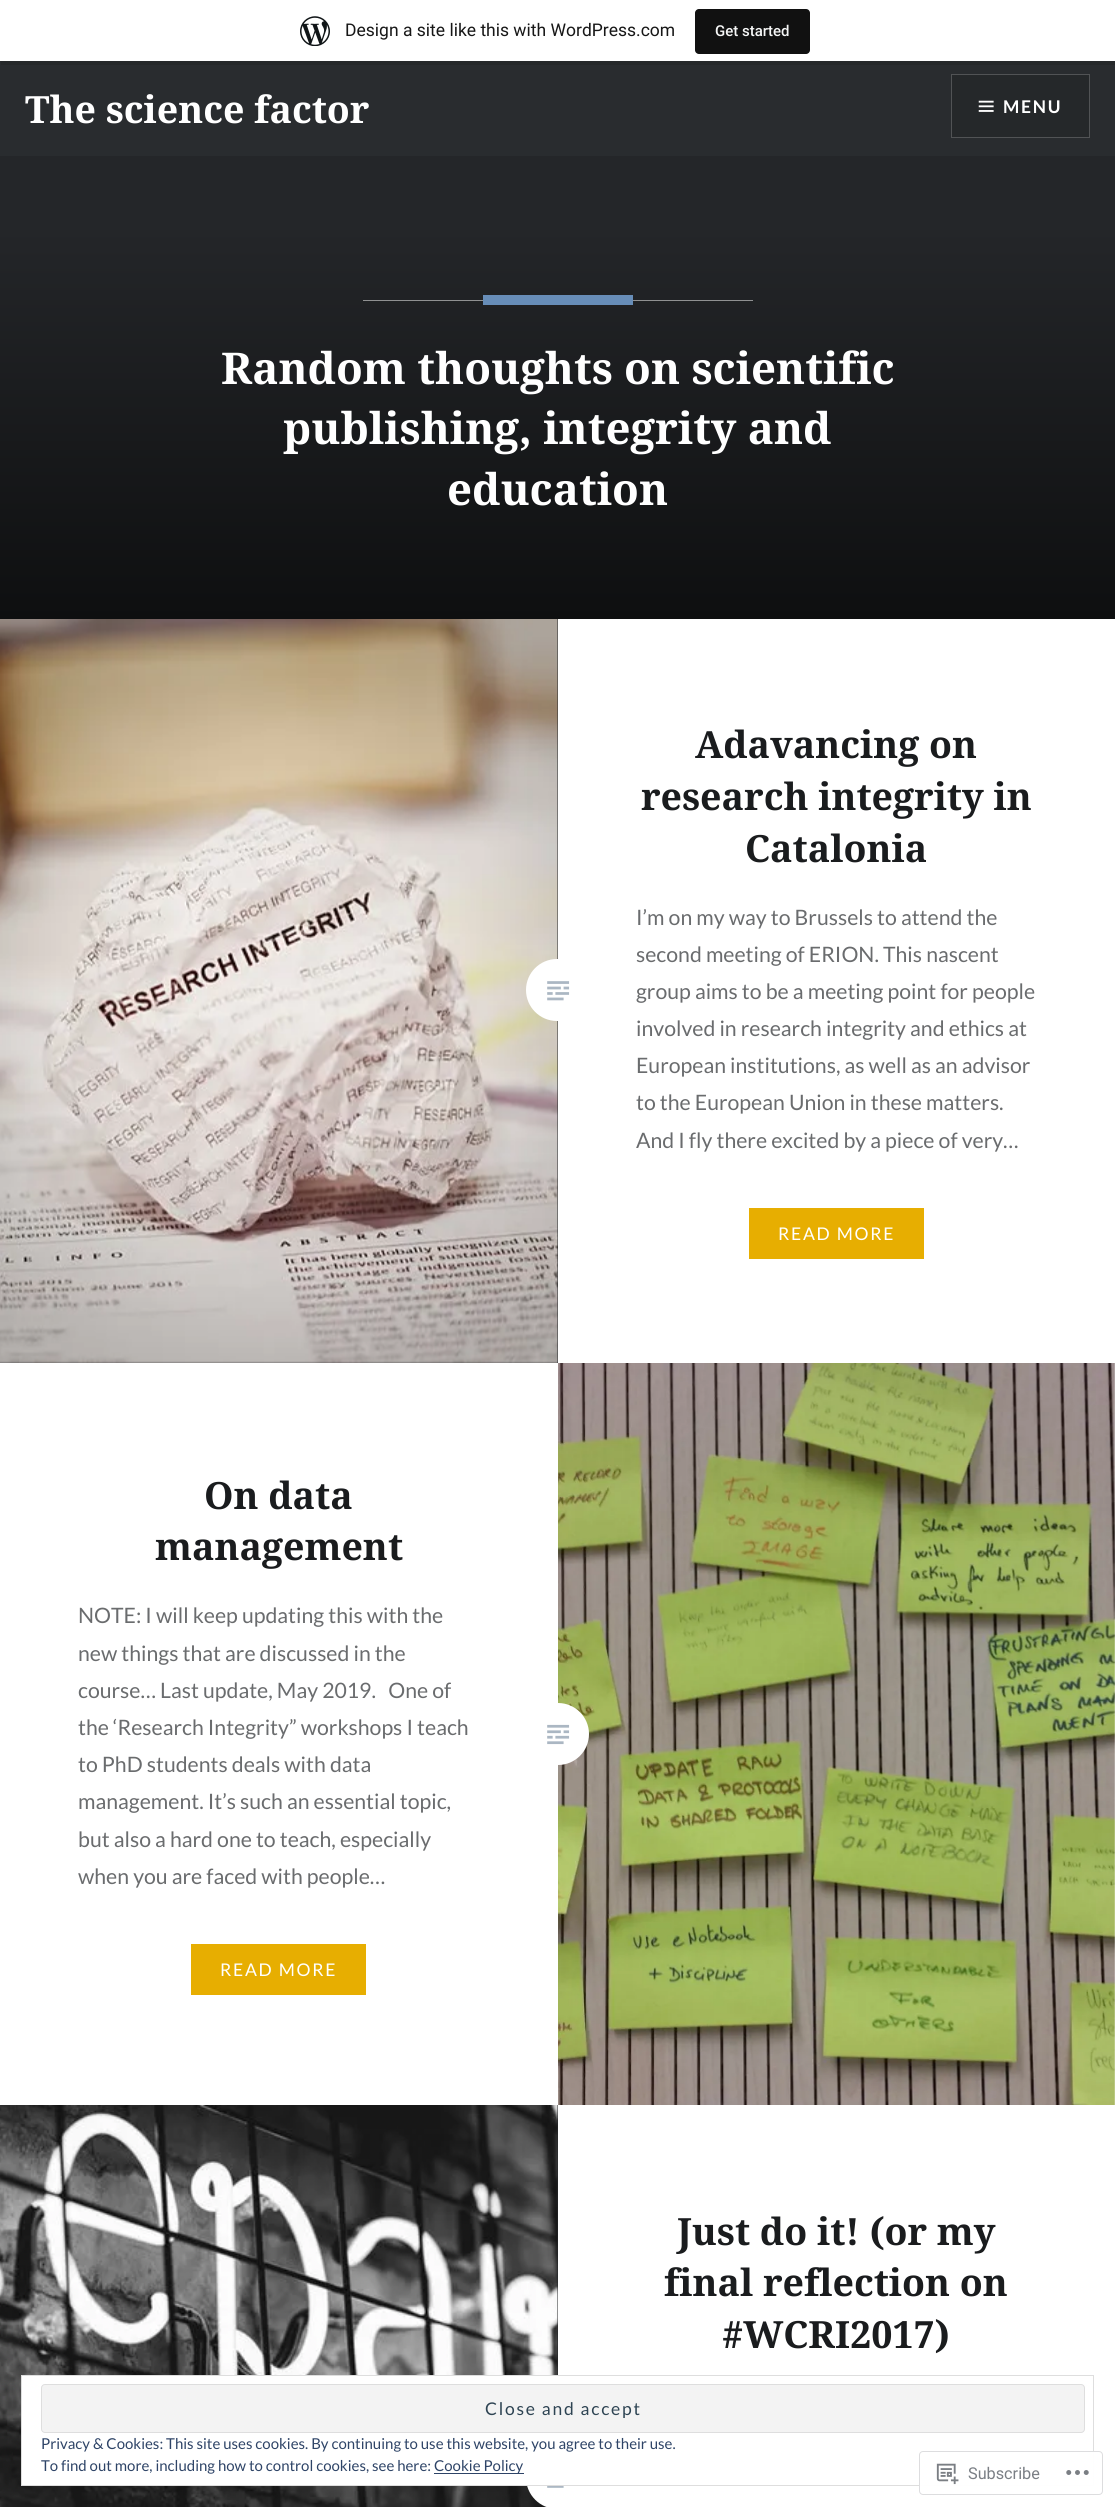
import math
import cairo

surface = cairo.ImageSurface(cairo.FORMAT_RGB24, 1115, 2507)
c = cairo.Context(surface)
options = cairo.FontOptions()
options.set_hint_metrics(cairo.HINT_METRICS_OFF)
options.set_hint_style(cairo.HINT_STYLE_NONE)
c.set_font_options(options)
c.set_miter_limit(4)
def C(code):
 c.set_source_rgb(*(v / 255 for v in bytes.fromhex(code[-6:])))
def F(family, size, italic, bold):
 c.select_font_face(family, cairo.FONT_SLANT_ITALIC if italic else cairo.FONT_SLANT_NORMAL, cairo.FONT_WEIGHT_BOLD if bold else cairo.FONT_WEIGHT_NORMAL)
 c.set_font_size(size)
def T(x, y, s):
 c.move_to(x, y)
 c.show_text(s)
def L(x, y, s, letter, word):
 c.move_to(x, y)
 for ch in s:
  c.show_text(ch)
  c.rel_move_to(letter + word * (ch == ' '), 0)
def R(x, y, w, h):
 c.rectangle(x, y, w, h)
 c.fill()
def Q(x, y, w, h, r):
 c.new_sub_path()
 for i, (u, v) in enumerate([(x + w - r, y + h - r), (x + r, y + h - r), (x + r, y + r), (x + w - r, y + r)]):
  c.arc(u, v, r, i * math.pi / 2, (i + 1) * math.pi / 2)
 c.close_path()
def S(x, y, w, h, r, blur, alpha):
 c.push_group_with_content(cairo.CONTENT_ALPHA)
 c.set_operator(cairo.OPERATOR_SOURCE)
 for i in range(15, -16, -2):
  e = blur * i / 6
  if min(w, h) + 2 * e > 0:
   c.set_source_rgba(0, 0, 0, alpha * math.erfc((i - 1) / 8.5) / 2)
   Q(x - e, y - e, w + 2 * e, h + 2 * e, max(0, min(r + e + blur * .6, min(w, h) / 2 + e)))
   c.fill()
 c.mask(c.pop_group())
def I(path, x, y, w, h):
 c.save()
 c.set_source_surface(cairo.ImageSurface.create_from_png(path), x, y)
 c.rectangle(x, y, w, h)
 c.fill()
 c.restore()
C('ffffff')
c.paint()
C('292c2f')
R(0,61,1115,95)
C('000000')
S(0,1,1115,62,0,1,.05)
C('25282a')
c.new_path()
c.move_to(1,61)
c.line_to(1,65)
c.line_to(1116,65)
c.line_to(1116,4)
c.line_to(1115,4)
c.line_to(1115,61)
c.close_path()
c.fill()
C('ffffff')
R(0,0,1115,61)
I('1.png',300,16,30,30)
F('Roboto',17.5,0,0)
C('171717')
T(345,36,'Design a site like this with WordPress.com')
C('111111')
Q(695,9,115,45,4)
c.fill()
F('Roboto Medium',15,0,0)
C('f6f7f7')
T(715,36,'Get started')
F('Noto Serif',37.5,0,1)
C('ffffff')
T(25,123,'The science factor')
C('25282a')
c.rectangle(951.5,74.5,138,63)
c.fill_preserve()
C('515355')
c.set_line_width(1)
c.stroke()
I('2.png',978,100,16,12)
F('Lato',17.5,0,1)
C('ffffff')
L(1003,113,'MENU',1.75,0)
C('242629')
R(0,156,1115,73)
gradient = cairo.LinearGradient(558,229,558,619)
gradient.add_color_stop_rgba(0,0.141,0.149,0.161,1)
gradient.add_color_stop_rgba(1,0.055,0.059,0.063,1)
c.set_source(gradient)
R(0,229,1115,390)
C('909192')
R(363,300,390,1)
C('678db8')
R(483,295,150,10)
F('Noto Serif',43.75,0,1)
C('ffffff')
T(221,384,'Random thoughts on scientific')
T(283,444,'publishing, integrity and')
T(447,505,'education')
C('242629')
R(0,619,558,744)
I('3.png',0,619,558,744)
C('ffffff')
Q(526,959,63,62,31)
c.fill()
F('Noto Serif',37.5,0,1)
C('1a1c1e')
T(695,758,'Adavancing on')
T(641,810,'research integrity in')
T(745,862,'Catalonia')
F('Lato',21.25,0,0)
C('6a6c6e')
T(636,925,'I’m on my way to Brussels to attend the')
T(636,962,'second meeting of ERION. This nascent')
T(636,999,'group aims to be a meeting point for people')
T(636,1036,'involved in research integrity and ethics at')
T(636,1073,'European institutions, as well as an advisor')
T(636,1110,'to the European Union in these matters.')
T(636,1148,'And I fly there excited by a piece of very…')
C('e7ae01')
R(749,1208,175,51)
F('Lato',17.5,0,0)
C('ffffff')
L(778,1240,'READ MORE',1.75,0)
I('4.png',547,981,23,20)
F('Noto Serif',37.5,0,1)
C('1a1c1e')
T(204,1509,'On data')
T(155,1560,'management')
F('Lato',21.25,0,0)
C('6a6c6e')
T(78,1623,'NOTE: I will keep updating this with the')
T(78,1661,'new things that are discussed in the')
T(78,1698,'course… Last update, May 2019.   One of')
T(78,1735,'the ‘Research Integrity” workshops I teach')
T(78,1772,'to PhD students deals with data')
T(78,1809,'management. It’s such an essential topic,')
T(78,1847,'but also a hard one to teach, especially')
T(78,1884,'when you are faced with people…')
C('e7ae01')
R(191,1944,175,51)
F('Lato',17.5,0,0)
C('ffffff')
L(220,1976,'READ MORE',1.75,0)
I('6.png',558,1363,557,742)
Q(526,1703,63,62,31)
c.fill()
I('5.png',547,1724,23,21)
C('242629')
R(557,2105,1,270)
I('7.png',0,2105,558,402)
F('Noto Serif',37.5,0,1)
C('1a1c1e')
T(677,2245,'Just do it! (or my')
T(664,2296,'final reflection on')
T(722,2348,'#WCRI2017)')
C('ffffff')
c.new_path()
c.arc(557.5,2477.5,31.5,0,2 * math.pi)
c.fill()
I('8.png',547,2486,17,2)
R(22,2376,536,109)
c.rectangle(21.5,2375.5,1072,110)
C('dedede')
c.stroke()
C('f3f3f3')
Q(41.5,2384.5,1043,48,3.5)
c.fill_preserve()
C('dedede')
c.stroke()
F('Lato',17.5,0,0)
C('2e4453')
L(485,2415,'Close and accept',1.75,0)
F('Lato',15,0,0)
C('2e4467')
T(41,2449,'Privacy & Cookies: This site uses cookies. By continuing to use this website, you agree to their use.')
T(41,2471,'To find out more, including how to control cookies, see here:')
R(434,2473,90,1)
T(434,2471,'Cookie Policy')
c.set_source_rgba(1,1,1,0.98)
Q(919.5,2451.5,183,43,3.5)
c.fill_preserve()
C('dddddf')
c.stroke()
I('9.png',936,2463,23,22)
F('Roboto',16.25,0,0)
C('7b7f85')
T(968,2479,'Subscribe')
I('10.png',1066,2470,23,5)
surface.write_to_png('o.png')
